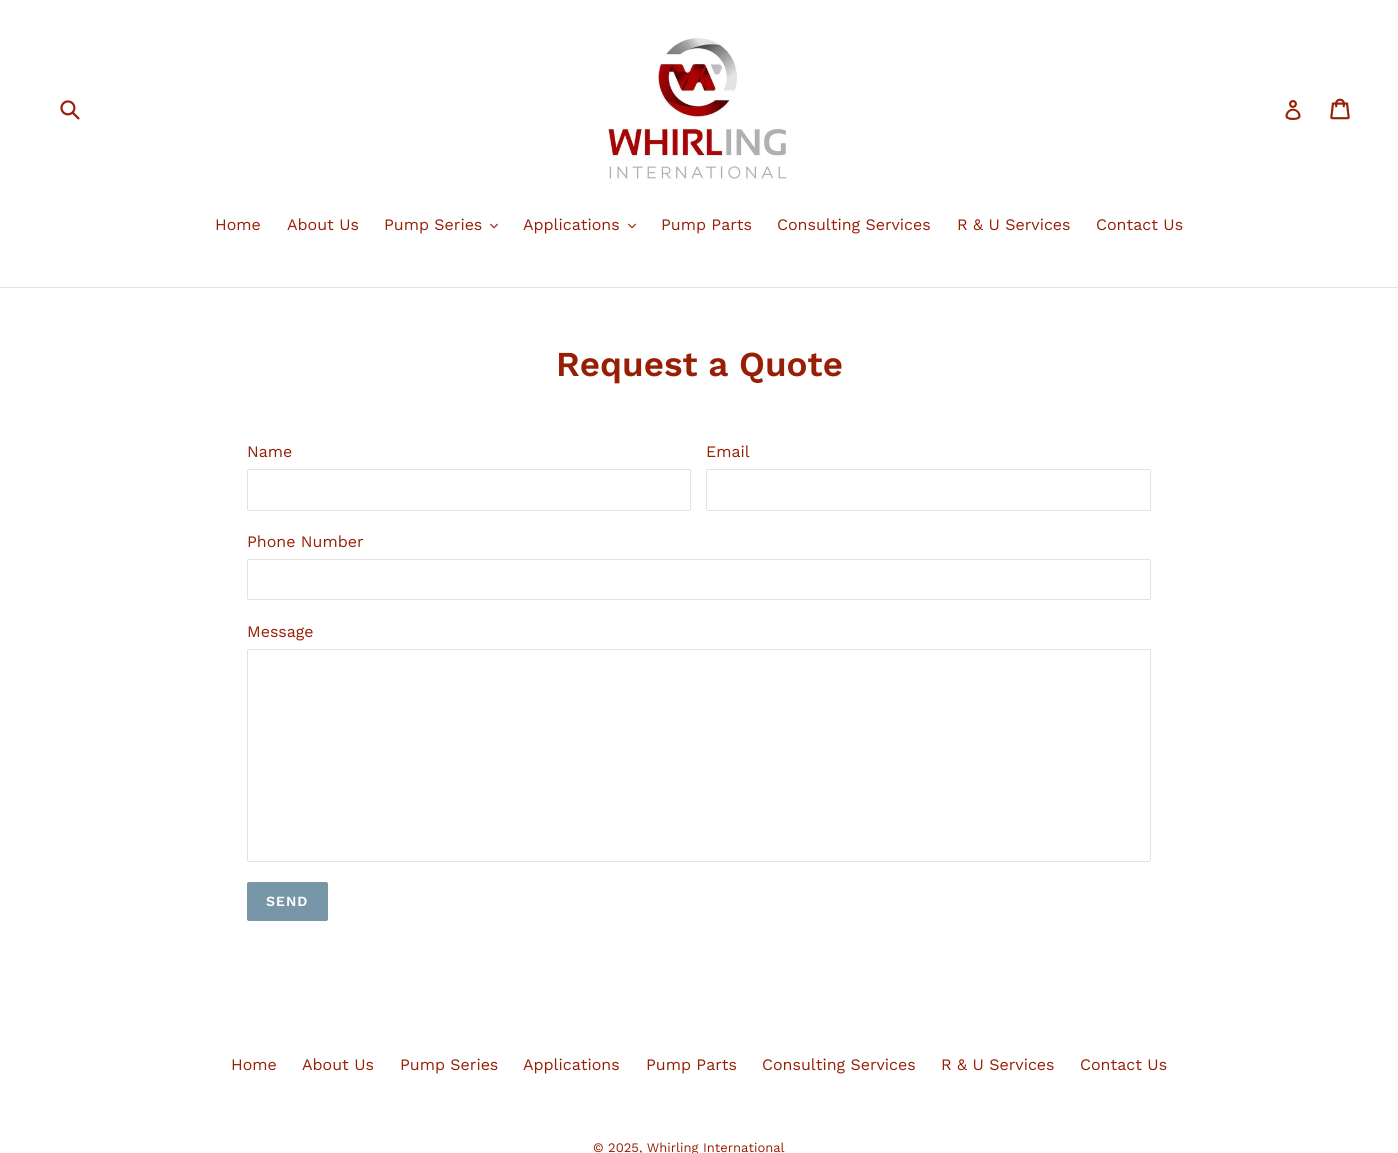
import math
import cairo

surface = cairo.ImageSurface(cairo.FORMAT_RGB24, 1398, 1153)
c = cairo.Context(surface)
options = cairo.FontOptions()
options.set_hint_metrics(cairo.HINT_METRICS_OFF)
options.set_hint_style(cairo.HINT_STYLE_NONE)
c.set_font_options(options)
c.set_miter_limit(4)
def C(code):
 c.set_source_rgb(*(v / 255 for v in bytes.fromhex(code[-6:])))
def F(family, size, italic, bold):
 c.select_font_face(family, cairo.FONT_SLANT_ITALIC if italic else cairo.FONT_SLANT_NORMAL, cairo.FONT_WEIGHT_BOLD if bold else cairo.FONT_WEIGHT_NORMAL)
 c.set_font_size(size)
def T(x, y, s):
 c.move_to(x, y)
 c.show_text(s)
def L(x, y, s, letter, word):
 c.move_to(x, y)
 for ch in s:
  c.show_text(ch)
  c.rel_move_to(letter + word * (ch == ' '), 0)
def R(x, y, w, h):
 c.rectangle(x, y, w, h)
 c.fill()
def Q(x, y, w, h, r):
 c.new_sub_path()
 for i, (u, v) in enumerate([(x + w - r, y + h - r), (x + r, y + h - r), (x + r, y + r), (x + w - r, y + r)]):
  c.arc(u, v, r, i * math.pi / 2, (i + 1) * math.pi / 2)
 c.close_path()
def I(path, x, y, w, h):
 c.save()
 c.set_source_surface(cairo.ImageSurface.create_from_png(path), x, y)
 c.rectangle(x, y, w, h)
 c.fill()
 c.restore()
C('ffffff')
c.paint()
I('1.png',60,100,20,20)
I('2.png',607,38,180,141)
I('3.png',1285,100,16,20)
I('4.png',1330,98,20,22)
C('e1e2e3')
R(0,287,1398,1)
F('Work Sans',16,0,0)
C('961f05')
T(215,230,'Home')
T(287,230,'About Us')
T(384,230,'Pump Series')
I('5.png',490,223,8,6)
T(523,230,'Applications')
I('5.png',628,223,8,6)
T(661,230,'Pump Parts')
T(777,230,'Consulting Services')
T(957,230,'R & U Services')
T(1096,230,'Contact Us')
F('Work Sans SemiBold',35,0,0)
T(556,376,'Request a Quote')
F('Work Sans',16,0,0)
T(247,457,'Name')
Q(247.5,469.5,443,41,1.5)
C('e1e2e3')
c.set_line_width(1)
c.stroke()
C('961f05')
T(706,457,'Email')
Q(706.5,469.5,444,41,1.5)
C('e1e2e3')
c.stroke()
C('961f05')
T(247,547,'Phone Number')
Q(247.5,559.5,903,40,1.5)
C('e1e2e3')
c.stroke()
C('961f05')
T(247,637,'Message')
Q(247.5,649.5,903,212,1.5)
C('e1e2e3')
c.stroke()
C('7796a8')
Q(247,882,81,39,2)
c.fill()
F('Work Sans SemiBold',14,0,0)
C('ffffff')
L(266,906,'SEND',1,0)
F('Work Sans',16,0,0)
C('961f05')
T(231,1070,'Home')
T(302,1070,'About Us')
T(400,1070,'Pump Series')
T(523,1070,'Applications')
T(646,1070,'Pump Parts')
T(762,1070,'Consulting Services')
T(941,1070,'R & U Services')
T(1080,1070,'Contact Us')
F('Work Sans',13,0,0)
T(593,1152,'© 2025, Whirling International')
surface.write_to_png('o.png')
